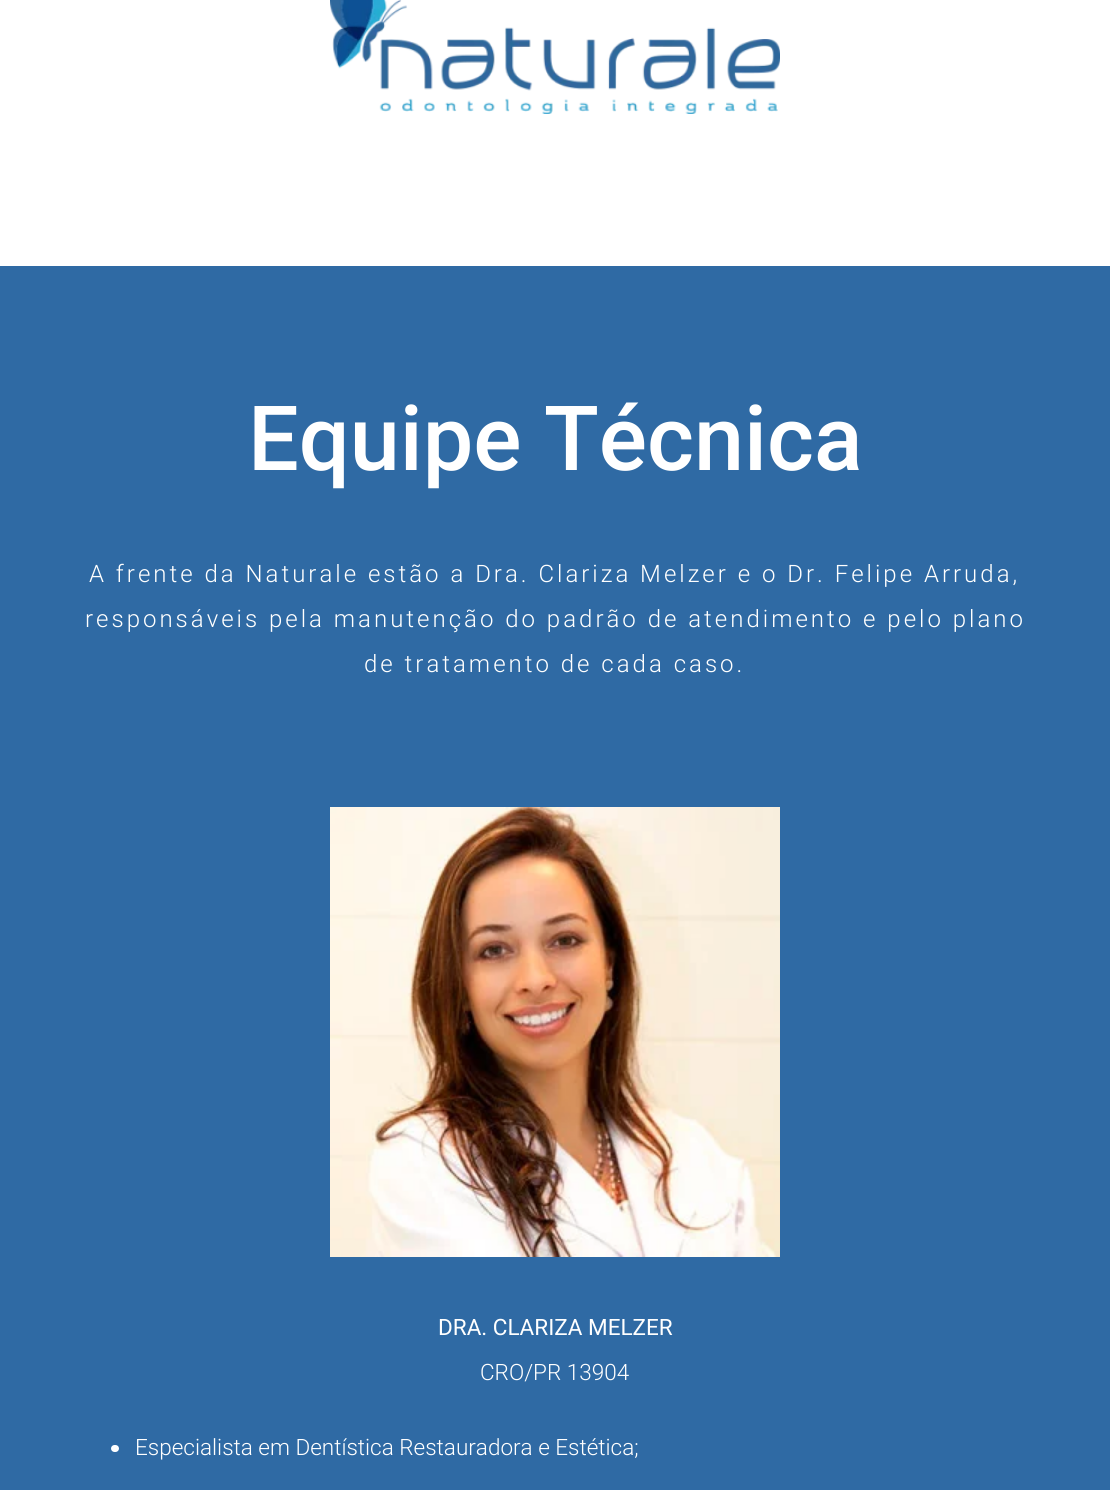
import math
import cairo

surface = cairo.ImageSurface(cairo.FORMAT_RGB24, 1110, 1490)
c = cairo.Context(surface)
options = cairo.FontOptions()
options.set_hint_metrics(cairo.HINT_METRICS_OFF)
options.set_hint_style(cairo.HINT_STYLE_NONE)
c.set_font_options(options)
c.set_miter_limit(4)
def C(code):
 c.set_source_rgb(*(v / 255 for v in bytes.fromhex(code[-6:])))
def F(family, size, italic, bold):
 c.select_font_face(family, cairo.FONT_SLANT_ITALIC if italic else cairo.FONT_SLANT_NORMAL, cairo.FONT_WEIGHT_BOLD if bold else cairo.FONT_WEIGHT_NORMAL)
 c.set_font_size(size)
def T(x, y, s):
 c.move_to(x, y)
 c.show_text(s)
def L(x, y, s, letter, word):
 c.move_to(x, y)
 for ch in s:
  c.show_text(ch)
  c.rel_move_to(letter + word * (ch == ' '), 0)
def R(x, y, w, h):
 c.rectangle(x, y, w, h)
 c.fill()
def Q(x, y, w, h, r):
 c.new_sub_path()
 for i, (u, v) in enumerate([(x + w - r, y + h - r), (x + r, y + h - r), (x + r, y + r), (x + w - r, y + r)]):
  c.arc(u, v, r, i * math.pi / 2, (i + 1) * math.pi / 2)
 c.close_path()
def I(path, x, y, w, h):
 c.save()
 c.set_source_surface(cairo.ImageSurface.create_from_png(path), x, y)
 c.rectangle(x, y, w, h)
 c.fill()
 c.restore()
C('ffffff')
c.paint()
I('1.png',330,0,450,114)
C('2f6aa4')
R(0,266,1110,1224)
F('Roboto Medium',90,0,0)
C('ffffff')
T(248,470,'Equipe Técnica')
F('Roboto Light',24,0,0)
L(89,582,'A frente da Naturale estão a Dra. Clariza Melzer e o Dr. Felipe Arruda,',3,0)
L(85,627,'responsáveis pela manutenção do padrão de atendimento e pelo plano',3,0)
L(364,672,'de tratamento de cada caso.',3,0)
I('2.png',330,807,450,450)
F('Roboto',22.5,0,0)
T(438,1335,'DRA. CLARIZA MELZER')
F('Roboto Light',22.5,0,0)
T(480,1380,'CRO/PR 13904')
Q(111,1445,8,7,3.5)
c.fill()
T(135,1455,'Especialista em Dentística Restauradora e Estética;')
surface.write_to_png('o.png')
